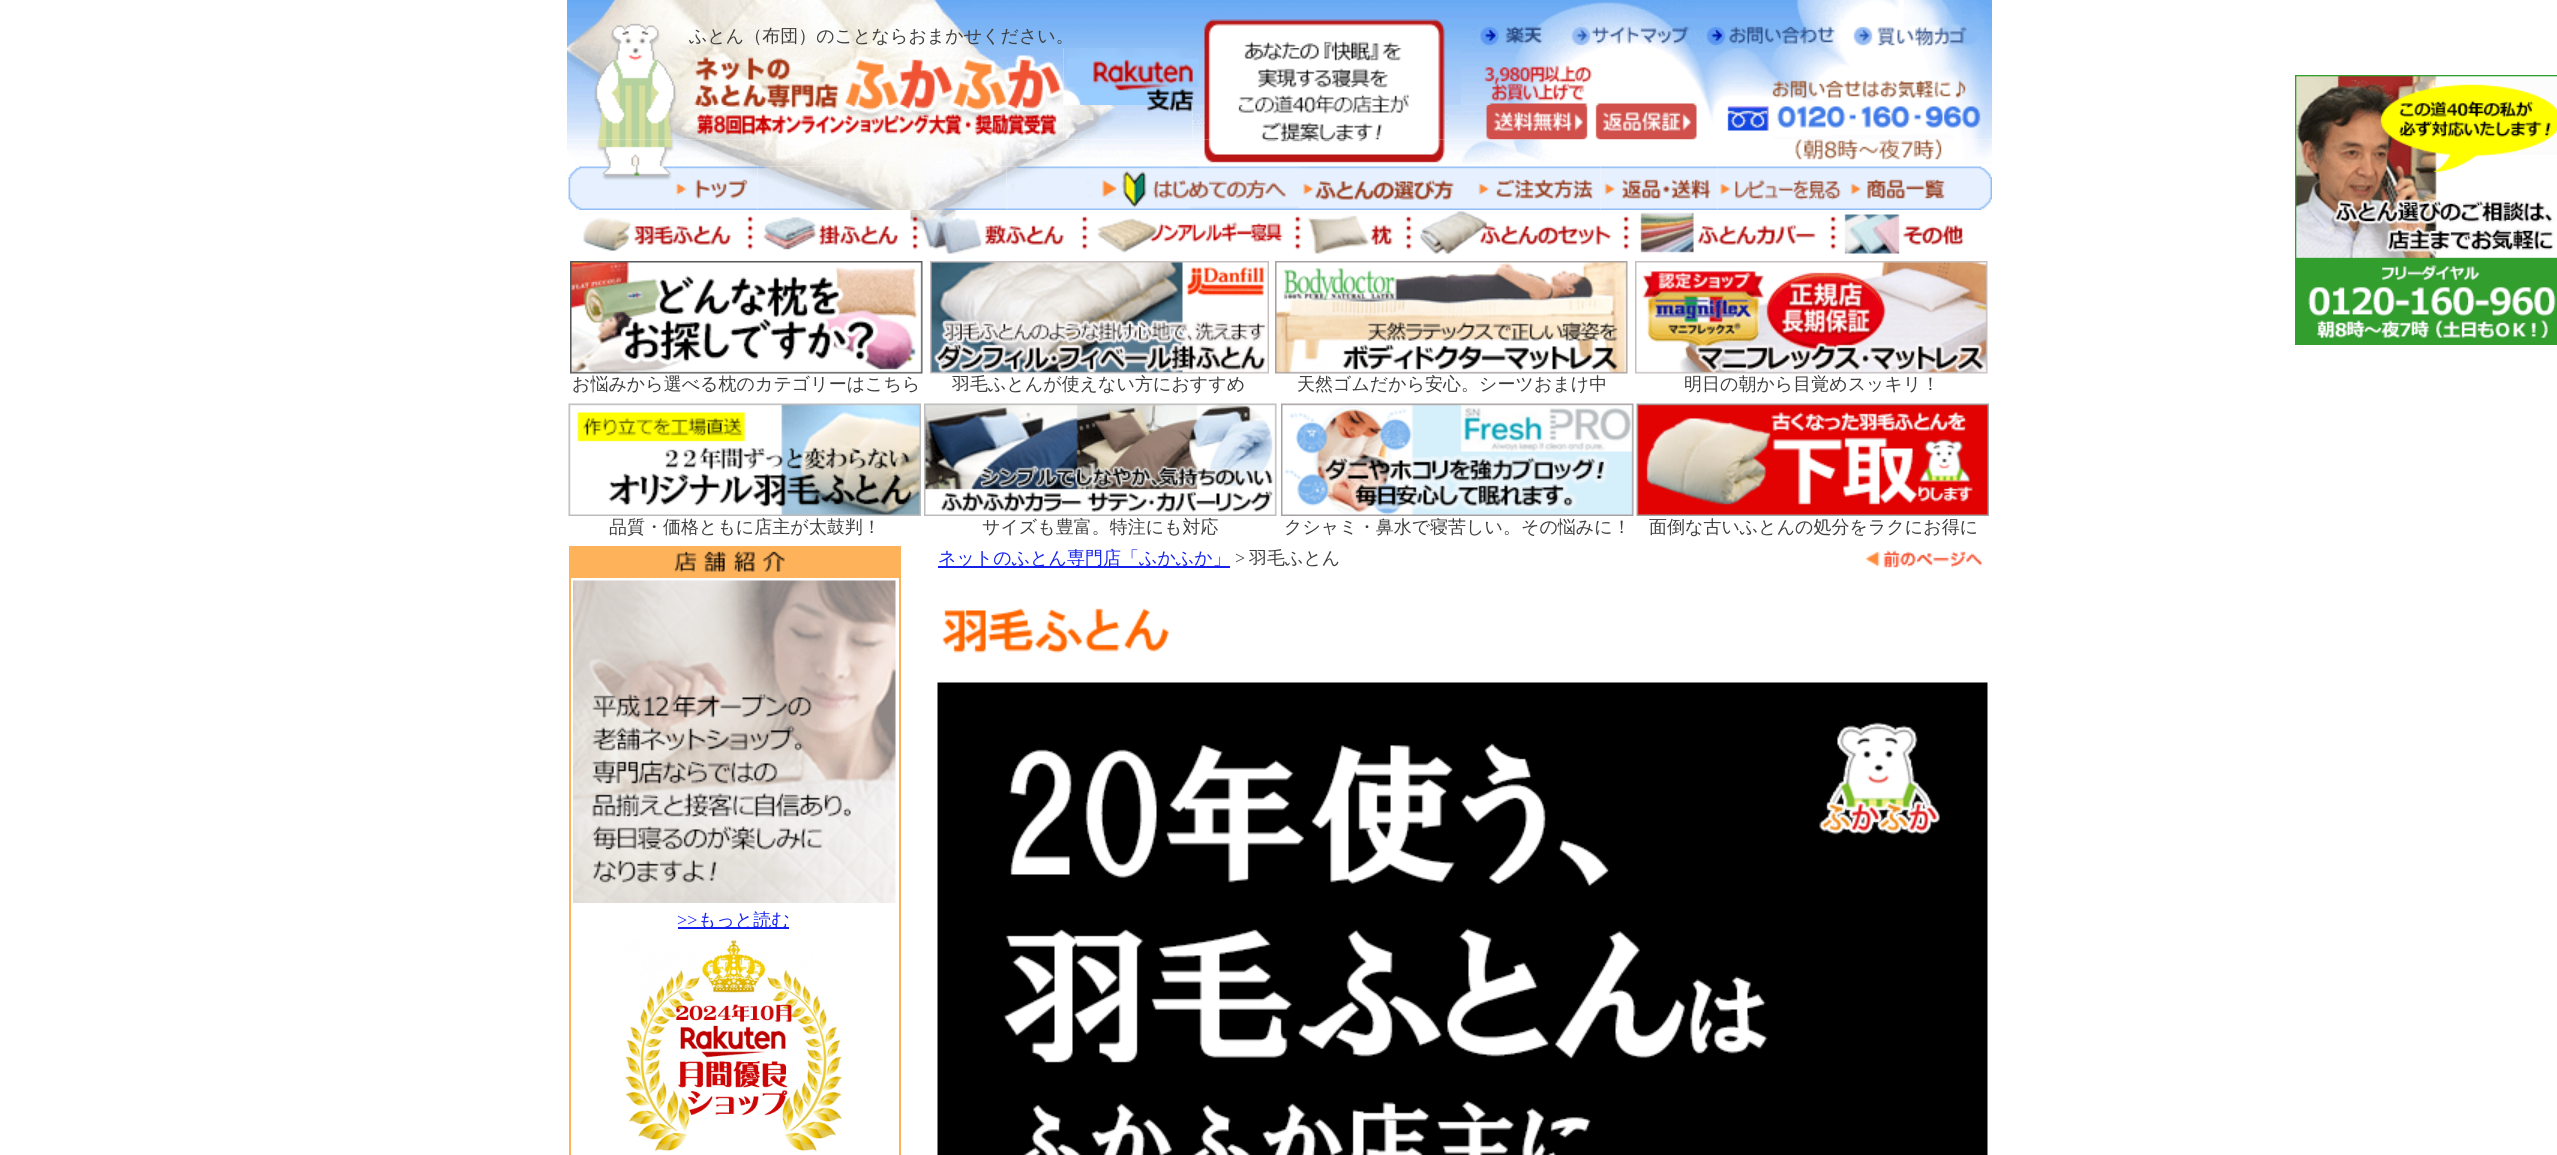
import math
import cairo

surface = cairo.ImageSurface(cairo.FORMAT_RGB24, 2557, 1155)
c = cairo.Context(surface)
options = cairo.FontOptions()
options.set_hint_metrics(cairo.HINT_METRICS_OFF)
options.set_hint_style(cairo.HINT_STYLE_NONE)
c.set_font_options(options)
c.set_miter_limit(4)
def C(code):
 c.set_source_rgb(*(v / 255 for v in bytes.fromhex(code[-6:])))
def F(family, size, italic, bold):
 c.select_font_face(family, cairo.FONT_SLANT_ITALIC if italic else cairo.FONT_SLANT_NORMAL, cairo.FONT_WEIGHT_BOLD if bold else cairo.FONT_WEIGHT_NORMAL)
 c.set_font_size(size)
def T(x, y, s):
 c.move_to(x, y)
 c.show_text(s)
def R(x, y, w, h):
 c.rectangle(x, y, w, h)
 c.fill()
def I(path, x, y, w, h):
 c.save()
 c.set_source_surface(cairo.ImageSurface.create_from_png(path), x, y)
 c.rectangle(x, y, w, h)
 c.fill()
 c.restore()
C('ffffff')
c.paint()
I('1.png',567,0,123,48)
I('2.png',690,0,876,48)
F('WenQuanYi Zen Hei Medium',18,0,0)
C('3e3e3e')
T(689,42,'ふとん（布団）のことならおまかせください。')
I('3.png',1566,0,132,48)
I('4.png',1698,0,147,48)
I('5.png',1845,0,147,48)
I('6.png',567,48,123,57)
I('7.png',690,48,374,57)
I('8.png',1063,48,398,57)
I('9.png',1461,48,531,57)
I('10.png',567,105,123,35)
I('11.png',690,105,374,35)
I('12.png',1063,105,130,35)
I('13.png',1192,105,293,35)
I('14.png',1485,105,103,35)
I('15.png',1595,105,102,35)
I('16.png',1707,105,285,35)
I('17.png',567,139,576,28)
I('18.png',1143,139,273,24)
I('19.png',1416,139,576,25)
I('20.png',568,166,106,44)
I('21.png',673,166,85,44)
I('22.png',757,166,250,44)
I('23.png',1006,166,293,44)
I('24.png',1299,166,177,44)
I('25.png',1476,166,125,44)
I('26.png',1600,166,118,44)
I('27.png',1717,166,128,44)
I('28.png',1845,166,147,44)
I('29.png',583,217,148,34)
I('30.png',747,216,152,34)
I('31.png',910,210,154,44)
I('32.png',1081,216,202,37)
I('33.png',1294,215,99,39)
I('34.png',1405,211,207,43)
I('35.png',1623,212,193,41)
I('36.png',1830,214,134,40)
I('37.png',570,261,353,113)
I('38.png',930,261,339,113)
I('39.png',1275,261,353,113)
I('40.png',1635,261,353,113)
T(572,390,'お悩みから選べる枕のカテゴリーはこちら')
T(952,390,'羽毛ふとんが使えない方におすすめ')
T(1297,390,'天然ゴムだから安心。シーツおまけ中')
T(1684,390,'明日の朝から目覚めスッキリ！')
I('41.png',568,403,353,113)
I('42.png',924,403,353,113)
I('43.png',1281,403,353,113)
I('44.png',1636,403,353,113)
T(609,533,'品質・価格ともに店主が太鼓判！')
T(982,533,'サイズも豊富。特注にも対応')
T(1284,533,'クシャミ・鼻水で寝苦しい。その悩みに！')
T(1649,533,'面倒な古いふとんの処分をラクにお得に')
C('1422ec')
R(938,566,292,2)
T(938,564,'ネットのふとん専門店「ふかふか」')
F('Liberation Serif',18,0,0)
C('3e3e3e')
T(1235,564,'>')
F('WenQuanYi Zen Hei Medium',18,0,0)
T(1249,564,'羽毛ふとん')
I('45.png',1865,550,117,18)
I('46.png',942,608,227,45)
I('47.png',937,682,1051,473)
C('feb35a')
R(569,546,331,2)
R(899,546,2,609)
R(569,546,2,609)
R(571,548,328,30)
I('48.png',674,550,111,22)
I('49.png',573,580,323,323)
F('Liberation Serif',18,0,0)
C('1422ec')
T(677,926,'>>')
R(678,927,111,2)
F('WenQuanYi Zen Hei Medium',18,0,0)
T(698,926,'もっと読む')
I('50.png',625,939,218,213)
I('51.png',2295,75,262,270)
surface.write_to_png('o.png')
